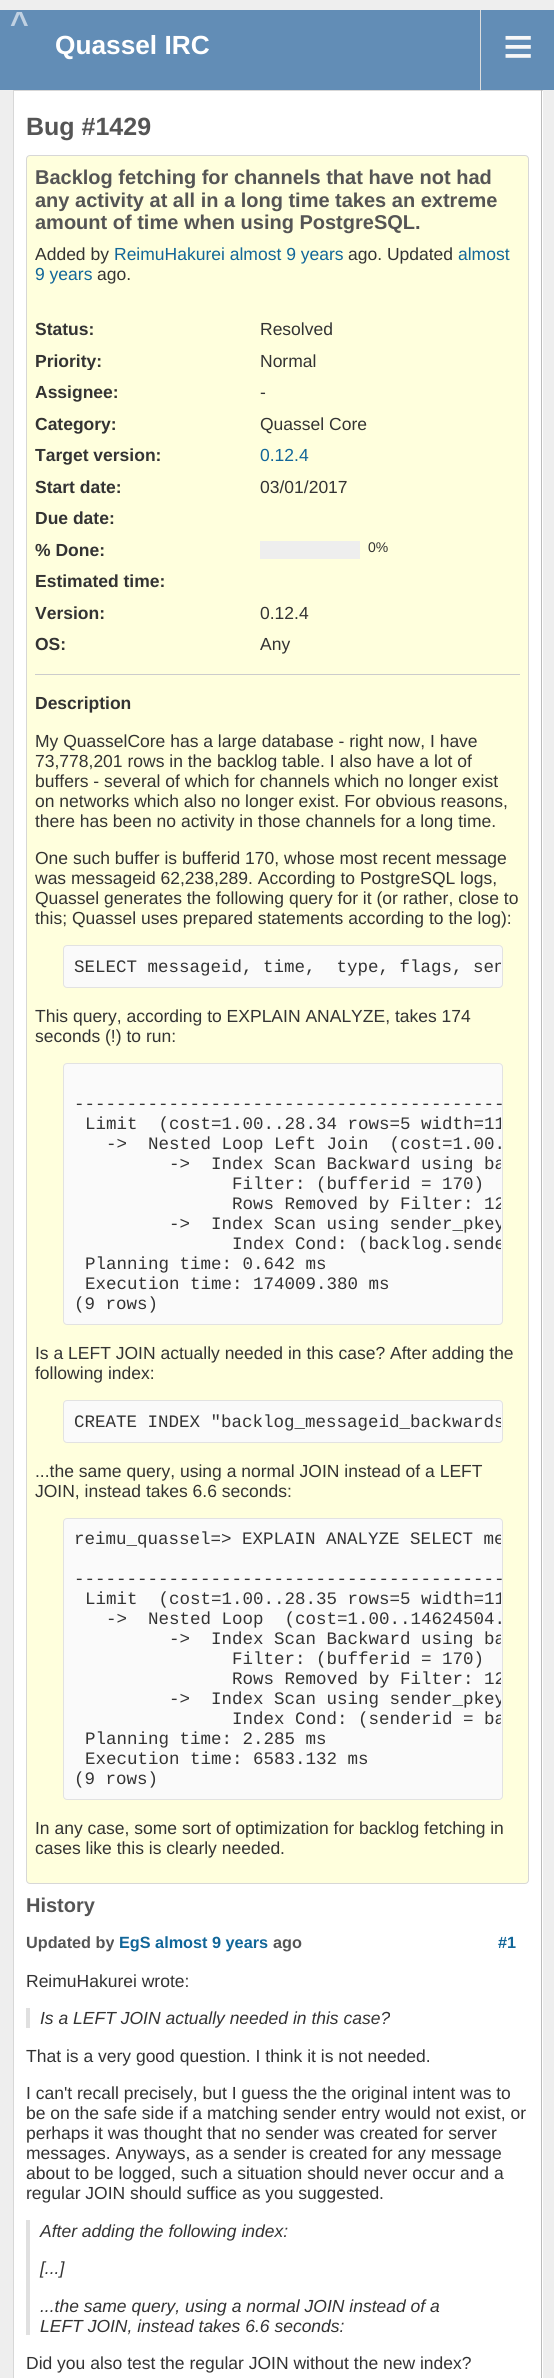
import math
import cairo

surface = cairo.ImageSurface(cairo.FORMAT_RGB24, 554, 2378)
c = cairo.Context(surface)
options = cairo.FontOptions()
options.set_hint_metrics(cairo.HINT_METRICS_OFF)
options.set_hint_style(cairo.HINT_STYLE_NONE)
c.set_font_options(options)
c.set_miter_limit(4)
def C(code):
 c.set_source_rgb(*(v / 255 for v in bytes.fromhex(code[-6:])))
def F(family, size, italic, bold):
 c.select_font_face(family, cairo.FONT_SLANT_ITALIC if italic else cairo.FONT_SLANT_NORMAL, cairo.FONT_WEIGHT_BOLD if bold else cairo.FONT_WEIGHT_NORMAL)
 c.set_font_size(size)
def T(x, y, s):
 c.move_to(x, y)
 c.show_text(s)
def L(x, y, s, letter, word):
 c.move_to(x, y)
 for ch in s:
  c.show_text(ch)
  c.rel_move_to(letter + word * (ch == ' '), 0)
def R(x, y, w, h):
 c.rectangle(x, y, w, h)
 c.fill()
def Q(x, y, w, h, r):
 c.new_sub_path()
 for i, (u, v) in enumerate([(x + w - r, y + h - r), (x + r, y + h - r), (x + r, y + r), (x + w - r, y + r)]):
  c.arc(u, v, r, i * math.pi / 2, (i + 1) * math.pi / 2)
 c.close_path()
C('eeeeee')
c.paint()
C('628db6')
R(0,10,554,80)
F('Liberation Sans',32,0,1)
C('c0d1e2')
L(10,34,'^',5,0)
F('Liberation Sans',26.25,0,1)
C('ffffff')
T(55,54,'Quassel IRC')
C('dddddd')
R(480,10,1,80)
F('Liberation Sans',52,0,0)
C('f8f8f8')
T(503,64,'≡')
C('ffffff')
R(14,91,529,2287)
C('d7d7d7')
R(13,90,530,1)
C('bbbbbb')
R(541,90,1,2288)
C('d7d7d7')
R(13,90,1,2288)
F('Liberation Sans',25,0,1)
C('555555')
T(26,135,'Bug #1429')
C('ffffdd')
Q(26.5,155.5,502,1728,3.5)
c.fill_preserve()
C('d7d7d7')
c.set_line_width(1)
c.stroke()
F('Liberation Sans',20,0,1)
C('555555')
T(35,184,'Backlog fetching for channels that have not had')
T(35,207,'any activity at all in a long time takes an extreme')
T(35,229,'amount of time when using PostgreSQL.')
F('Liberation Sans',17.5,0,0)
C('333333')
T(35,260,'Added by')
C('116699')
T(114,260,'ReimuHakurei almost 9 years')
C('333333')
T(348,260,'ago. Updated')
C('116699')
T(458,260,'almost')
T(35,280,'9 years')
C('333333')
T(97,280,'ago.')
F('Liberation Sans',17.5,0,1)
T(35,335,'Status:')
F('Liberation Sans',17.5,0,0)
T(260,335,'Resolved')
c.save()
c.rectangle(35,350,213,20)
c.clip()
F('Liberation Sans',17.5,0,1)
T(35,367,'Priority:')
c.restore()
T(260,367,'Normal')
F('Liberation Sans',17.5,0,1)
T(35,398,'Assignee:')
F('Liberation Sans',17.5,0,0)
T(260,398,'-')
F('Liberation Sans',17.5,0,1)
T(35,430,'Category:')
F('Liberation Sans',17.5,0,0)
T(260,430,'Quassel Core')
F('Liberation Sans',17.5,0,1)
T(35,461,'Target version:')
F('Liberation Sans',17.5,0,0)
C('116699')
T(260,461,'0.12.4')
F('Liberation Sans',17.5,0,1)
C('333333')
T(35,493,'Start date:')
F('Liberation Sans',17.5,0,0)
T(260,493,'03/01/2017')
F('Liberation Sans',17.5,0,1)
T(35,524,'Due date:')
T(35,556,'% Done:')
C('eeeeee')
R(260,541,100,18)
F('Liberation Sans',14,0,0)
C('333333')
T(368,552,'0%')
F('Liberation Sans',17.5,0,1)
T(35,587,'Estimated time:')
T(35,619,'Version:')
F('Liberation Sans',17.5,0,0)
T(260,619,'0.12.4')
F('Liberation Sans',17.5,0,1)
T(35,650,'OS:')
F('Liberation Sans',17.5,0,0)
T(260,650,'Any')
C('cccccc')
R(35,674,485,1)
F('Liberation Sans',17.5,0,1)
C('333333')
T(35,709,'Description')
F('Liberation Sans',17.5,0,0)
T(35,747,'My QuasselCore has a large database - right now, I have')
T(35,767,'73,778,201 rows in the backlog table. I also have a lot of')
T(35,787,'buffers - several of which for channels which no longer exist')
T(35,807,'on networks which also no longer exist. For obvious reasons,')
T(35,827,'there has been no activity in those channels for a long time.')
T(35,864,'One such buffer is bufferid 170, whose most recent message')
T(35,884,'was messageid 62,238,289. According to PostgreSQL logs,')
T(35,904,'Quassel generates the following query for it (or rather, close to')
T(35,924,'this; Quassel uses prepared statements according to the log):')
C('fafafa')
Q(63.5,945.5,439,42,3.5)
c.fill_preserve()
C('e2e2e2')
c.stroke()
c.save()
Q(64,946,437,40,2.5)
c.clip()
F('Liberation Mono',17.5,0,0)
C('333333')
T(74,972,'SELECT messageid, time,  type, flags, sen')
c.restore()
C('333333')
T(35,1022,'This query, according to EXPLAIN ANALYZE, takes 174')
T(35,1042,'seconds (!) to run:')
C('fafafa')
Q(63.5,1063.5,439,261,3.5)
c.fill_preserve()
C('e2e2e2')
c.stroke()
F('Liberation Mono',17.5,0,0)
C('333333')
T(74,1109,'-----------------------------------------')
c.save()
Q(64,1064,437,260,2.5)
c.clip()
T(85,1129,'Limit  (cost=1.00..28.34 rows=5 width=11')
c.restore()
T(106,1149,'->  Nested Loop Left Join  (cost=1.00.')
c.save()
Q(64,1064,437,260,2.5)
c.clip()
T(169,1169,'->  Index Scan Backward using ba')
c.restore()
T(232,1189,'Filter: (bufferid = 170)')
c.save()
Q(64,1064,437,260,2.5)
c.clip()
T(232,1209,'Rows Removed by Filter: 12')
T(169,1229,'->  Index Scan using sender_pkey')
T(232,1249,'Index Cond: (backlog.sende')
c.restore()
T(85,1269,'Planning time: 0.642 ms')
T(85,1289,'Execution time: 174009.380 ms')
T(74,1309,'(9 rows)')
F('Liberation Sans',17.5,0,0)
T(35,1359,'Is a LEFT JOIN actually needed in this case? After adding the')
T(35,1379,'following index:')
C('fafafa')
Q(63.5,1400.5,439,42,3.5)
c.fill_preserve()
C('e2e2e2')
c.stroke()
c.save()
Q(64,1401,437,40,2.5)
c.clip()
F('Liberation Mono',17.5,0,0)
C('333333')
T(74,1427,'CREATE INDEX "backlog_messageid_backwards')
c.restore()
C('333333')
T(35,1477,'...the same query, using a normal JOIN instead of a LEFT')
T(35,1497,'JOIN, instead takes 6.6 seconds:')
C('fafafa')
Q(63.5,1518.5,439,281,3.5)
c.fill_preserve()
C('e2e2e2')
c.stroke()
c.save()
Q(64,1519,437,280,2.5)
c.clip()
F('Liberation Mono',17.5,0,0)
C('333333')
T(74,1544,'reimu_quassel=> EXPLAIN ANALYZE SELECT me')
c.restore()
F('Liberation Mono',17.5,0,0)
C('333333')
T(74,1584,'-----------------------------------------')
c.save()
Q(64,1519,437,280,2.5)
c.clip()
T(85,1604,'Limit  (cost=1.00..28.35 rows=5 width=11')
c.restore()
T(106,1624,'->  Nested Loop  (cost=1.00..14624504.')
c.save()
Q(64,1519,437,280,2.5)
c.clip()
T(169,1644,'->  Index Scan Backward using ba')
c.restore()
T(232,1664,'Filter: (bufferid = 170)')
c.save()
Q(64,1519,437,280,2.5)
c.clip()
T(232,1684,'Rows Removed by Filter: 12')
T(169,1704,'->  Index Scan using sender_pkey')
T(232,1724,'Index Cond: (senderid = ba')
c.restore()
T(85,1744,'Planning time: 2.285 ms')
T(85,1764,'Execution time: 6583.132 ms')
T(74,1784,'(9 rows)')
F('Liberation Sans',17.5,0,0)
T(35,1834,'In any case, some sort of optimization for backlog fetching in')
T(35,1854,'cases like this is clearly needed.')
F('Liberation Sans',20,0,1)
C('555555')
T(26,1912,'History')
F('Liberation Sans',16.25,0,1)
T(26,1948,'Updated by')
C('116699')
T(119,1948,'EgS almost 9 years')
C('555555')
T(273,1948,'ago')
C('116699')
T(498,1948,'#1')
F('Liberation Sans',17.5,0,0)
C('333333')
T(26,1987,'ReimuHakurei wrote:')
C('e0e0e0')
R(26,2008,4,20)
F('Liberation Sans',17.5,1,0)
C('333333')
T(40,2024,'Is a LEFT JOIN actually needed in this case?')
F('Liberation Sans',17.5,0,0)
T(26,2062,'That is a very good question. I think it is not needed.')
T(26,2099,'I can\'t recall precisely, but I guess the the original intent was to')
T(26,2119,'be on the safe side if a matching sender entry would not exist, or')
T(26,2139,'perhaps it was thought that no sender was created for server')
T(26,2159,'messages. Anyways, as a sender is created for any message')
T(26,2179,'about to be logged, such a situation should never occur and a')
T(26,2199,'regular JOIN should suffice as you suggested.')
C('e0e0e0')
R(26,2220,4,115)
F('Liberation Sans',17.5,1,0)
C('333333')
T(40,2237,'After adding the following index:')
T(40,2274,'[...]')
T(40,2312,'...the same query, using a normal JOIN instead of a')
T(40,2332,'LEFT JOIN, instead takes 6.6 seconds:')
F('Liberation Sans',17.5,0,0)
T(26,2369,'Did you also test the regular JOIN without the new index?')
surface.write_to_png('o.png')
